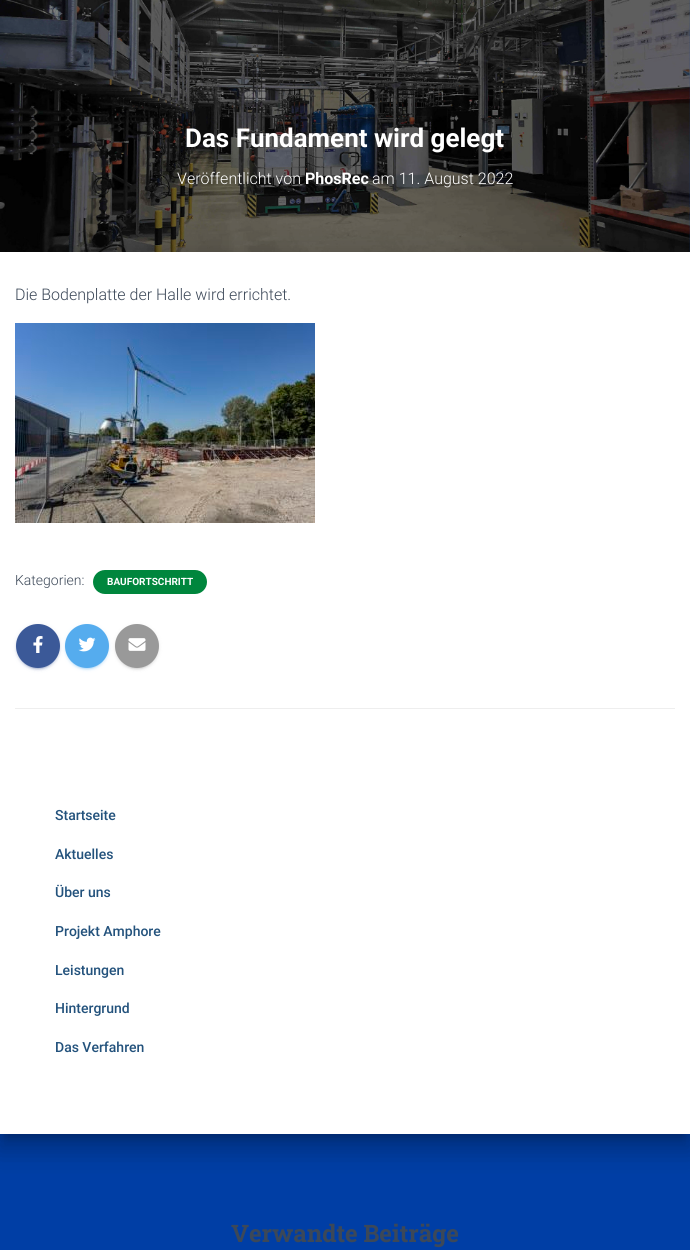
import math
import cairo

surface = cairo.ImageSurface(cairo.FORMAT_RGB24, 690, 1250)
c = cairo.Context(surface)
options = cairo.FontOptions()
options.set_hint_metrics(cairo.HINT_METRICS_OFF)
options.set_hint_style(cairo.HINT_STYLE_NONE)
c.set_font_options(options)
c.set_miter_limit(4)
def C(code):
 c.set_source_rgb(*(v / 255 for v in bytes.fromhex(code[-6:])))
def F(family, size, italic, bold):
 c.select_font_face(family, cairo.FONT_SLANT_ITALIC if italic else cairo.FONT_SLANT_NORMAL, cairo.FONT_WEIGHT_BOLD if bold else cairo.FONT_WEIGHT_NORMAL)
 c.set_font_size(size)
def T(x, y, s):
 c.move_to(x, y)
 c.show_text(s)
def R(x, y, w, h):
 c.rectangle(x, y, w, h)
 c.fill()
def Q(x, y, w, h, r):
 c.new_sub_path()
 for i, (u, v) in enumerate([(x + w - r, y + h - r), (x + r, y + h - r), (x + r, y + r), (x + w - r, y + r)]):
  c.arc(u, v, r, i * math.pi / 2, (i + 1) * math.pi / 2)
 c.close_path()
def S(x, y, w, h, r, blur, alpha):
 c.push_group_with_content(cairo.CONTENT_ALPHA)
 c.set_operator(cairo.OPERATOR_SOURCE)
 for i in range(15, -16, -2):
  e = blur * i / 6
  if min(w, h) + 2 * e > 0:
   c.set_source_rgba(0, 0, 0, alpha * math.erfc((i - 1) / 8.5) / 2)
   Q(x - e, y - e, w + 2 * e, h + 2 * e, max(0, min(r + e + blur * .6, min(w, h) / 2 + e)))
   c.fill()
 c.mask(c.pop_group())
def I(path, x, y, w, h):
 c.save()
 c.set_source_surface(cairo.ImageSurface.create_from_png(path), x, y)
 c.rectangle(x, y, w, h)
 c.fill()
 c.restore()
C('003ea5')
c.paint()
I('1.png',0,0,690,252)
F('Roboto',26,0,1)
C('ffffff')
T(185,147,'Das Fundament wird gelegt')
F('Roboto Light',16,0,0)
T(177,184,'Veröffentlicht von')
F('Roboto',16,0,1)
T(305,184,'PhosRec')
F('Roboto Light',16,0,0)
T(372,184,'am 11. August 2022')
C('000000')
S(5,265,680,872,0,5,.2)
S(-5,253,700,892,0,15,.12)
S(-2,266,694,886,0,12,.14)
C('ffffff')
R(0,252,690,882)
C('3c4858')
T(15,300,'Die Bodenplatte der Halle wird errichtet.')
I('2.png',15,323,300,200)
F('Roboto Light',14,0,0)
T(15,585,'Kategorien:')
C('00863d')
Q(93,570,114,24,12)
c.fill()
F('Roboto',10,0,1)
C('ffffff')
T(107,585,'BAUFORTSCHRITT')
C('3b5998')
S(16,625,44,44,22,2.5,.12)
S(18,629,40,40,20,.5,.2)
S(16,626,44,44,22,1,.14)
C('3b5998')
c.arc(38,646,22,0,2 * math.pi)
c.fill()
I('3.png',33,636,10,17)
C('55acee')
S(65,625,44,44,22,2.5,.12)
S(67,629,40,40,20,.5,.2)
S(65,626,44,44,22,1,.14)
C('55acee')
c.arc(87,646,22,0,2 * math.pi)
c.fill()
I('4.png',78,637,18,15)
C('999999')
S(115,625,44,44,22,2.5,.12)
S(117,629,40,40,20,.5,.2)
S(115,626,44,44,22,1,.14)
C('999999')
c.arc(137,646,22,0,2 * math.pi)
c.fill()
I('5.png',128,638,18,13)
C('eeeeee')
R(15,708,660,1)
F('Roboto Medium',14,0,0)
C('23527c')
T(55,820,'Startseite')
T(55,859,'Aktuelles')
T(55,897,'Über uns')
T(55,936,'Projekt Amphore')
T(55,975,'Leistungen')
T(55,1013,'Hintergrund')
T(55,1052,'Das Verfahren')
F('Roboto Slab',24,0,1)
C('3c4858')
T(231,1242,'Verwandte Beiträge')
surface.write_to_png('o.png')
